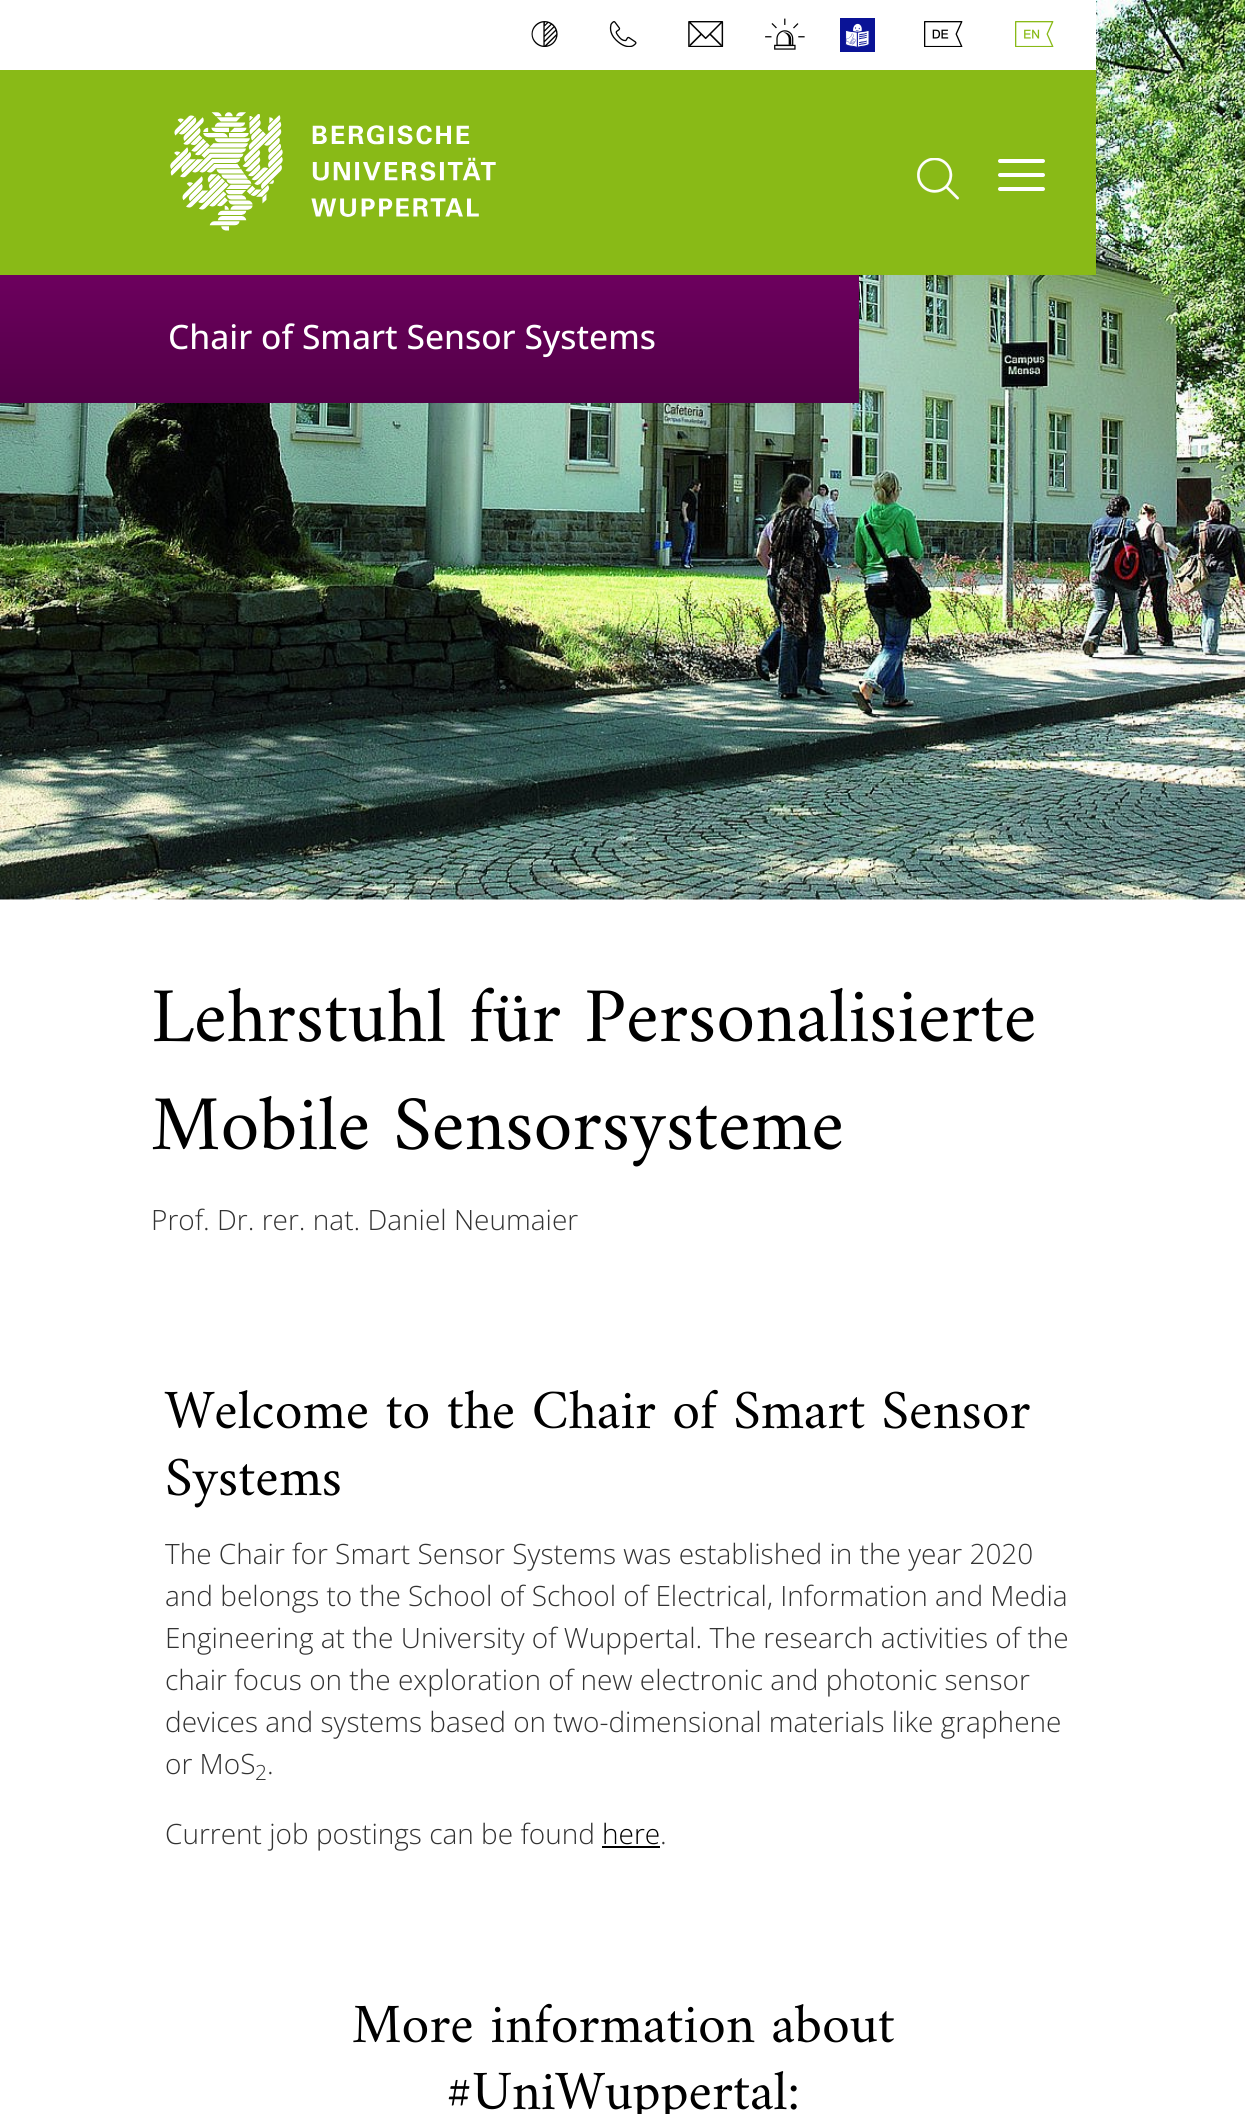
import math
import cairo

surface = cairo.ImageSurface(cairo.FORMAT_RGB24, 1245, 2114)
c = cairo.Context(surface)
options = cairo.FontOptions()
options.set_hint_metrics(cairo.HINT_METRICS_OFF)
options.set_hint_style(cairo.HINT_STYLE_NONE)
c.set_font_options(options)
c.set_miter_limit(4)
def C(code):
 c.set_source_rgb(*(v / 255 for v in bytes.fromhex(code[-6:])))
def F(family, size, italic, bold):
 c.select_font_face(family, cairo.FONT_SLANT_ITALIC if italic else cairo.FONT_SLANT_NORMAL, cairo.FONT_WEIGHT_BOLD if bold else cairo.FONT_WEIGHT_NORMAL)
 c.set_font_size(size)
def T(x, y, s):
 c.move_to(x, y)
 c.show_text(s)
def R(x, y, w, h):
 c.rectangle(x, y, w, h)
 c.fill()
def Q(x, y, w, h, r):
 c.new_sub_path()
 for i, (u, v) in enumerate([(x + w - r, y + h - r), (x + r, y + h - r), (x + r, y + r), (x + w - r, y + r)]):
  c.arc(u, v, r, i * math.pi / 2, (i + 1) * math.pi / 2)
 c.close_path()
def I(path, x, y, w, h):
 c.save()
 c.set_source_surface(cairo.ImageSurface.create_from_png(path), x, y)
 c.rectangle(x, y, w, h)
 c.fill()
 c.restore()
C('ffffff')
c.paint()
I('10.png',0,0,1245,900)
C('ffffff')
R(0,0,1096,70)
I('1.png',531,21,27,26)
I('2.png',609,21,28,26)
I('3.png',688,21,36,26)
I('4.png',765,18,40,32)
I('5.png',840,18,35,34)
I('6.png',924,21,39,26)
I('7.png',1015,21,39,26)
C('89ba17')
R(0,70,1096,205)
I('8.png',170,112,326,119)
I('9.png',917,158,42,42)
C('ffffff')
Q(998,159,47,4,2)
c.fill()
Q(998,173,47,4,2)
c.fill()
Q(998,187,47,4,2)
c.fill()
gradient = cairo.LinearGradient(125,275,125,403)
gradient.add_color_stop_rgba(0,0.427,0,0.369,1)
gradient.add_color_stop_rgba(1,0.318,0,0.275,1)
c.set_source(gradient)
R(0,275,151,128)
gradient = cairo.LinearGradient(505,275,505,403)
gradient.add_color_stop_rgba(0,0.427,0,0.369,1)
gradient.add_color_stop_rgba(1,0.318,0,0.275,1)
c.set_source(gradient)
R(151,275,708,128)
F('Open Sans Medium',33.6,0,0)
C('ffffff')
T(168,349,'Chair of Smart Sensor Systems')
F('Amiri',78.4,0,0)
C('000000')
T(151,1041,'Lehrstuhl für Personalisierte')
T(151,1149,'Mobile Sensorsysteme')
F('Open Sans Light',28,0,0)
C('323232')
T(151,1230,'Prof. Dr. rer. nat. Daniel Neumaier')
F('Amiri',56,0,0)
C('000000')
T(165,1428,'Welcome to the Chair of Smart Sensor')
T(165,1495,'Systems')
F('Open Sans Light',28,0,0)
C('323232')
T(165,1564,'The Chair for Smart Sensor Systems was established in the year 2020')
T(165,1606,'and belongs to the School of School of Electrical, Information and Media')
T(165,1648,'Engineering at the University of Wuppertal. The research activities of the')
T(165,1690,'chair focus on the exploration of new electronic and photonic sensor')
T(165,1732,'devices and systems based on two-dimensional materials like graphene')
T(165,1774,'or MoS')
F('Open Sans Light',21,0,0)
T(255,1780,'2')
F('Open Sans Light',28,0,0)
T(267,1774,'.')
T(165,1844,'Current job postings can be found')
C('000000')
T(602,1844,'here')
R(602,1846,58,2)
C('323232')
T(660,1844,'.')
F('Amiri',56,0,0)
C('000000')
T(352,2042,'More information about')
T(446,2109,'#UniWuppertal:')
surface.write_to_png('o.png')
